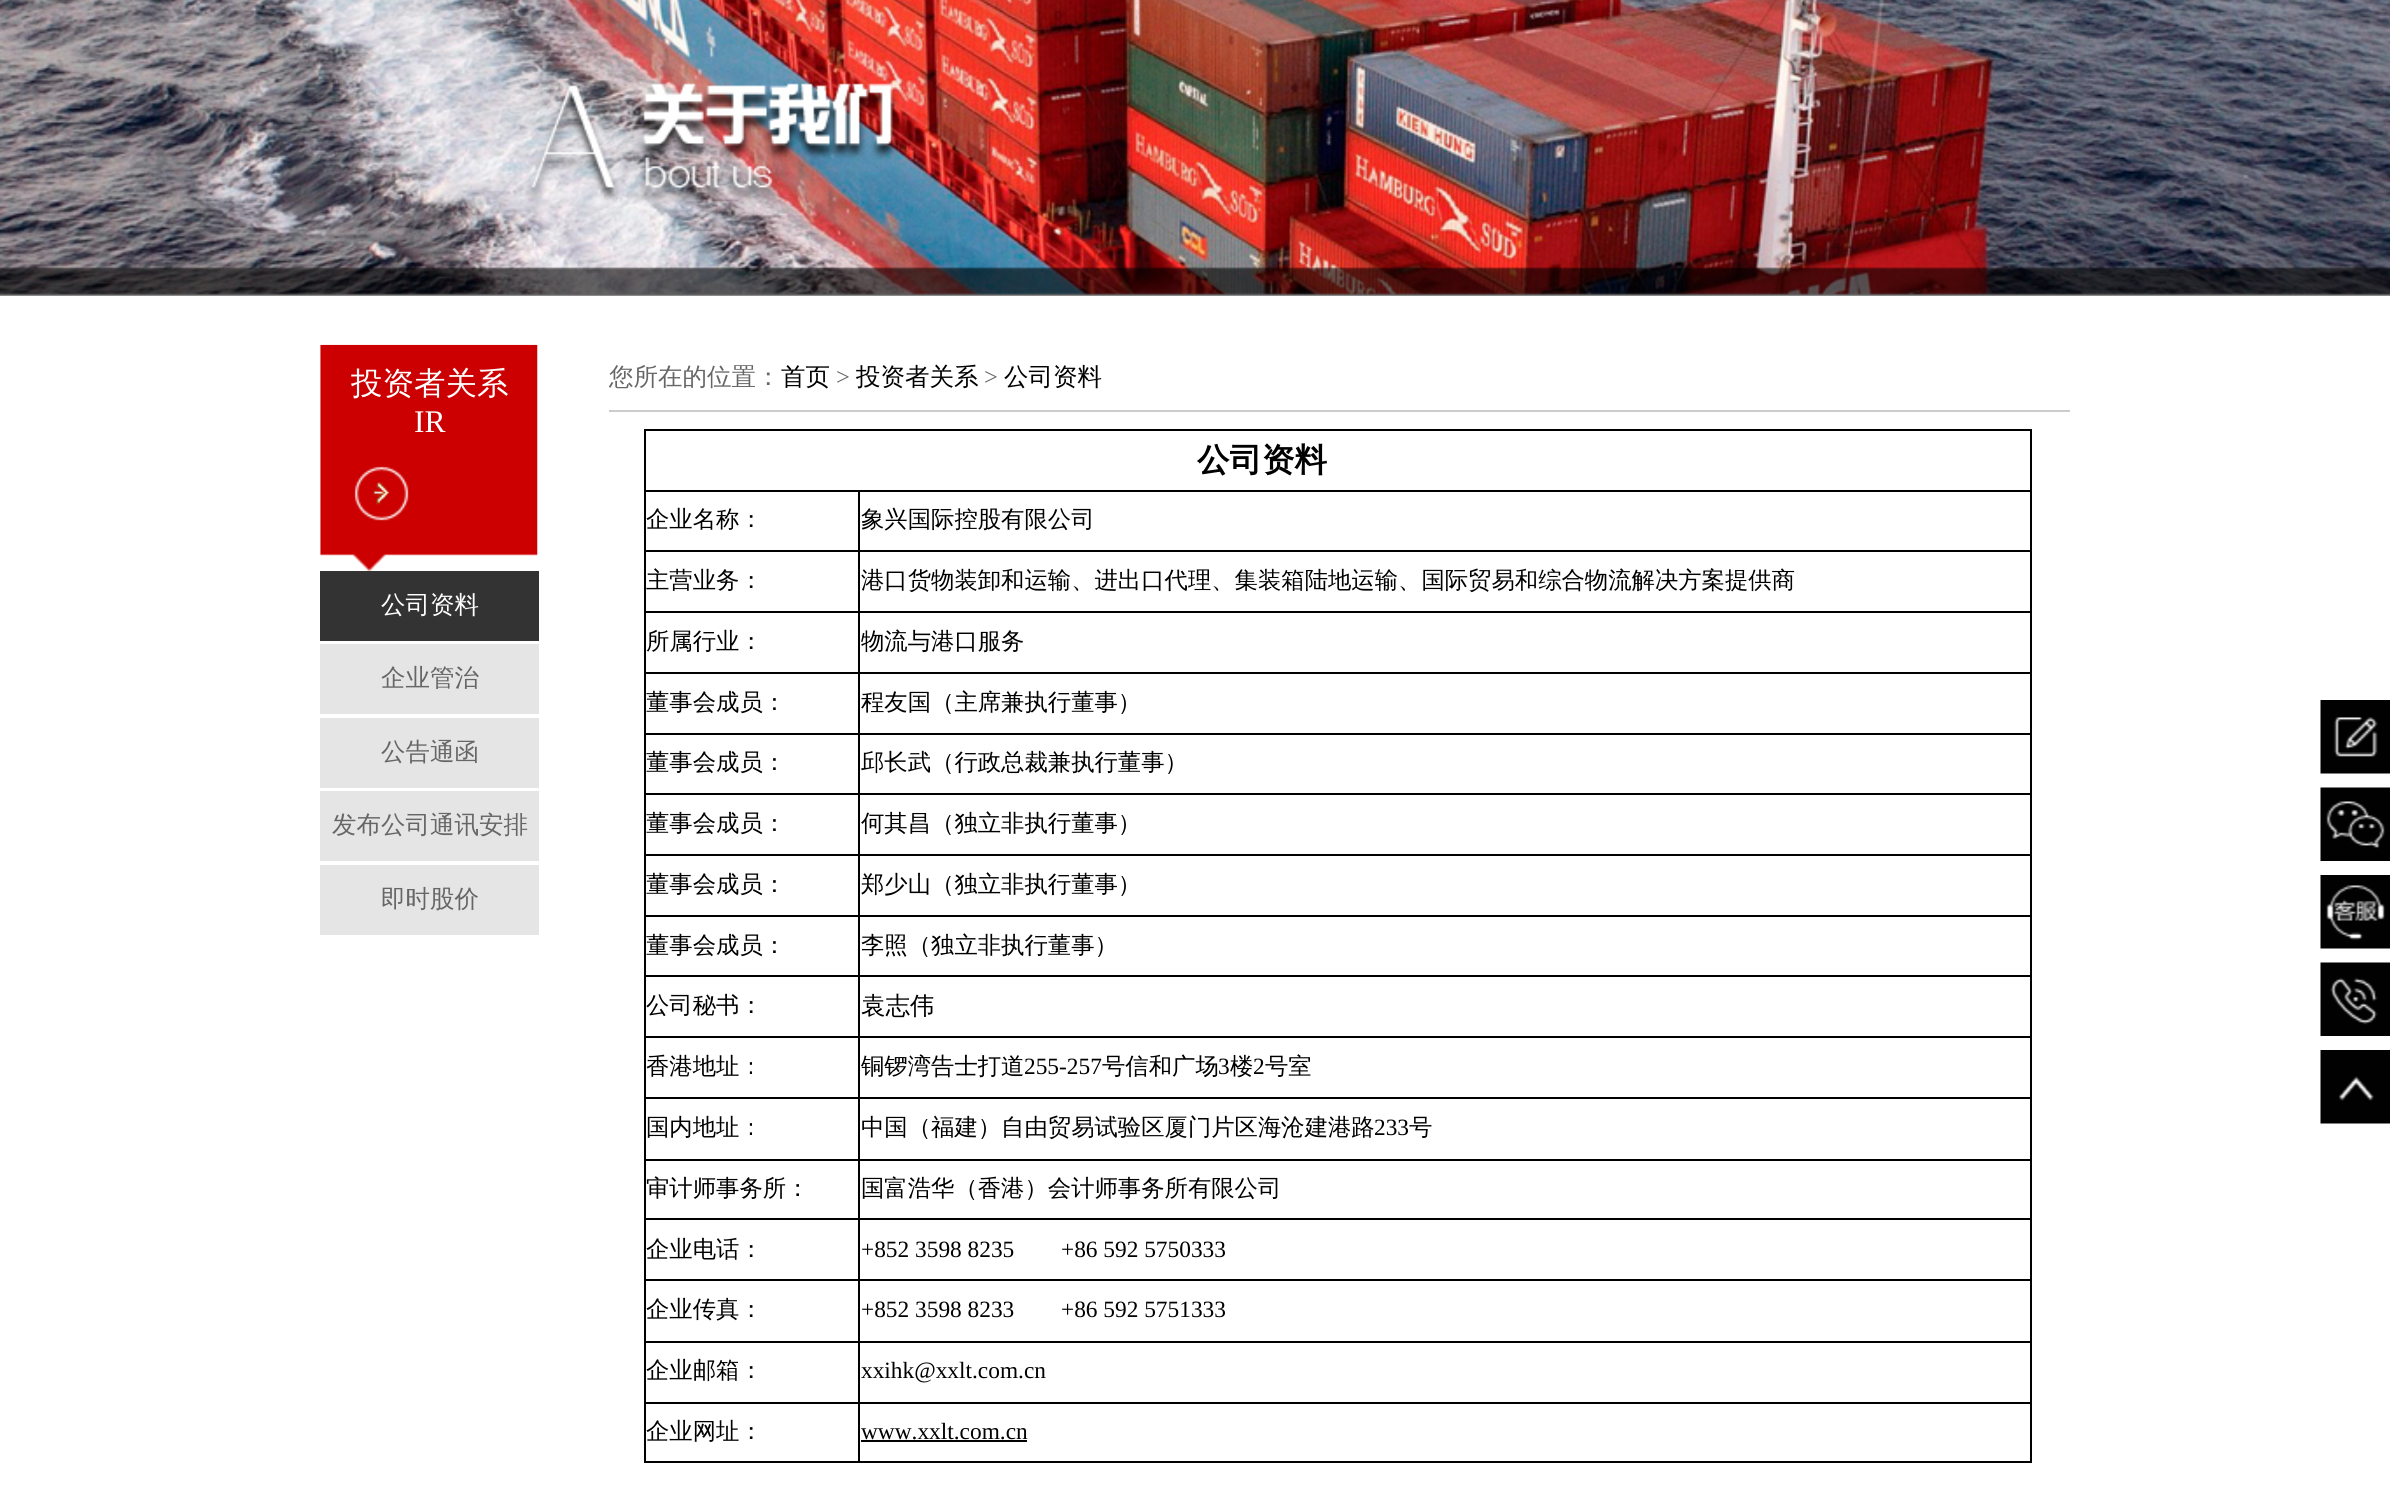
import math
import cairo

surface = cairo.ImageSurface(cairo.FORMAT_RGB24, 2390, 1512)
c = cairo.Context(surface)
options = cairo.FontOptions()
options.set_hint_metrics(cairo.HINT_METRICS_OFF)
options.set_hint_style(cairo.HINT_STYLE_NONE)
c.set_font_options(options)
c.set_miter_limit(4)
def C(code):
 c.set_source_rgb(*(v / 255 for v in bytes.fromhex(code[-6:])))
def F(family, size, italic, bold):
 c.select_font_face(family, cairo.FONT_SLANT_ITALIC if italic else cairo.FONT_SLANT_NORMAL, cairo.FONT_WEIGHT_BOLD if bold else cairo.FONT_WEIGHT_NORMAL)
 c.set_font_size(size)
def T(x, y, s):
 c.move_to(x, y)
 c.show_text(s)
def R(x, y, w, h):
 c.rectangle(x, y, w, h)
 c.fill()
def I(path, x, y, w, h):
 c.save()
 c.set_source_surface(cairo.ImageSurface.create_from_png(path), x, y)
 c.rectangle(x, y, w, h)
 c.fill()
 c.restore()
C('ffffff')
c.paint()
I('1.png',0,0,2390,296)
I('2.png',320,344,218,227)
F('WenQuanYi Zen Hei Medium',31.5,0,0)
C('ffffff')
T(351,394,'投资者关系')
F('Liberation Serif',31.5,0,0)
T(414,432,'IR')
C('333333')
R(320,571,219,70)
F('WenQuanYi Zen Hei Medium',24.5,0,0)
C('ffffff')
T(381,613,'公司资料')
C('e5e5e5')
R(320,644,219,70)
C('666666')
T(381,686,'企业管治')
C('e5e5e5')
R(320,718,219,70)
C('666666')
T(381,760,'公告通函')
C('e5e5e5')
R(320,791,219,70)
C('666666')
T(332,833,'发布公司通讯安排')
C('e5e5e5')
R(320,865,219,70)
C('666666')
T(381,907,'即时股价')
C('cccccc')
R(609,410,1461,2)
C('666666')
T(609,385,'您所在的位置：')
C('000000')
T(781,385,'首页')
F('Liberation Serif',24.5,0,0)
C('666666')
T(836,385,'>')
F('WenQuanYi Zen Hei Medium',24.5,0,0)
C('000000')
T(856,385,'投资者关系')
F('Liberation Serif',24.5,0,0)
C('666666')
T(984,385,'>')
F('WenQuanYi Zen Hei Medium',24.5,0,0)
C('000000')
T(1004,385,'公司资料')
R(644,429,1388,2)
R(2030,490,2,973)
R(2030,429,2,63)
R(858,1461,1174,2)
R(858,1402,2,61)
R(858,1402,1174,2)
R(858,1341,2,63)
R(858,1341,1174,2)
R(858,1279,2,63)
R(858,1279,1174,2)
R(858,1218,2,63)
R(858,1218,1174,2)
R(858,1159,2,61)
R(858,1159,1174,2)
R(858,1097,2,63)
R(858,1097,1174,2)
R(858,1036,2,63)
R(858,1036,1174,2)
R(858,975,2,63)
R(858,975,1174,2)
R(858,915,2,62)
R(858,915,1174,2)
R(858,854,2,63)
R(858,854,1174,2)
R(858,793,2,63)
R(858,793,1174,2)
R(858,733,2,62)
R(858,733,1174,2)
R(858,672,2,63)
R(858,672,1174,2)
R(858,611,2,63)
R(858,611,1174,2)
R(858,550,2,63)
R(858,550,1174,2)
R(858,490,2,61)
R(644,1461,215,2)
R(644,1402,2,61)
R(644,1402,215,2)
R(644,1341,2,63)
R(644,1341,215,2)
R(644,1279,2,63)
R(644,1279,215,2)
R(644,1218,2,63)
R(644,1218,215,2)
R(644,1159,2,61)
R(644,1159,215,2)
R(644,1097,2,63)
R(644,1097,215,2)
R(644,1036,2,63)
R(644,1036,215,2)
R(644,975,2,63)
R(644,975,215,2)
R(644,915,2,62)
R(644,915,215,2)
R(644,854,2,63)
R(644,854,215,2)
R(644,793,2,63)
R(644,793,215,2)
R(644,733,2,62)
R(644,733,215,2)
R(644,672,2,63)
R(644,672,215,2)
R(644,611,2,63)
R(644,611,215,2)
R(644,550,2,63)
R(644,550,215,2)
R(644,490,2,61)
R(644,490,1388,2)
R(644,429,2,63)
F('WenQuanYi Zen Hei',32.5,0,1)
T(1197,471,'公司资料')
F('WenQuanYi Zen Hei Medium',23.35,0,0)
T(646,527,'企业名称：')
T(861,527,'象兴国际控股有限公司')
T(646,588,'主营业务：')
T(861,588,'港口货物装卸和运输、进出口代理、集装箱陆地运输、国际贸易和综合物流解决方案提供商')
T(646,649,'所属行业：')
T(861,649,'物流与港口服务')
T(646,710,'董事会成员：')
T(861,710,'程友国（主席兼执行董事）')
T(646,770,'董事会成员：')
T(861,770,'邱长武（行政总裁兼执行董事）')
T(646,831,'董事会成员：')
T(861,831,'何其昌（独立非执行董事）')
T(646,892,'董事会成员：')
T(861,892,'郑少山（独立非执行董事）')
T(646,953,'董事会成员：')
T(861,953,'李照（独立非执行董事）')
T(646,1013,'公司秘书：')
F('WenQuanYi Zen Hei Medium',24.5,0,0)
T(861,1014,'袁志伟')
F('WenQuanYi Zen Hei Medium',23.35,0,0)
T(646,1074,'香港地址：')
T(861,1074,'铜锣湾告士打道')
F('Liberation Serif',23.35,0,0)
T(1024,1074,'255-257')
F('WenQuanYi Zen Hei Medium',23.35,0,0)
T(1102,1074,'号信和广场')
F('Liberation Serif',23.35,0,0)
T(1218,1074,'3')
F('WenQuanYi Zen Hei Medium',23.35,0,0)
T(1230,1074,'楼')
F('Liberation Serif',23.35,0,0)
T(1253,1074,'2')
F('WenQuanYi Zen Hei Medium',23.35,0,0)
T(1265,1074,'号室')
T(646,1135,'国内地址：')
T(861,1135,'中国（福建）自由贸易试验区厦门片区海沧建港路')
F('Liberation Serif',23.35,0,0)
T(1374,1135,'233')
F('WenQuanYi Zen Hei Medium',23.35,0,0)
T(1409,1135,'号')
T(646,1196,'审计师事务所：')
T(861,1196,'国富浩华（香港）会计师事务所有限公司')
T(646,1257,'企业电话：')
F('Liberation Serif',23.35,0,0)
T(861,1257,'+852 3598 8235        +86 592 5750333')
F('WenQuanYi Zen Hei Medium',23.35,0,0)
T(646,1317,'企业传真：')
F('Liberation Serif',23.35,0,0)
T(861,1317,'+852 3598 8233        +86 592 5751333')
F('WenQuanYi Zen Hei Medium',23.35,0,0)
T(646,1378,'企业邮箱：')
F('Liberation Serif',23.35,0,0)
T(861,1378,'xxihk@xxlt.com.cn')
F('WenQuanYi Zen Hei Medium',23.35,0,0)
T(646,1439,'企业网址：')
F('Liberation Serif',23.35,0,0)
T(861,1439,'www.xxlt.com.cn')
R(861,1440,166,2)
I('3.png',2320,700,70,74)
I('4.png',2320,787,70,74)
I('5.png',2320,875,70,74)
I('6.png',2320,962,70,74)
I('7.png',2320,1050,70,74)
surface.write_to_png('o.png')
